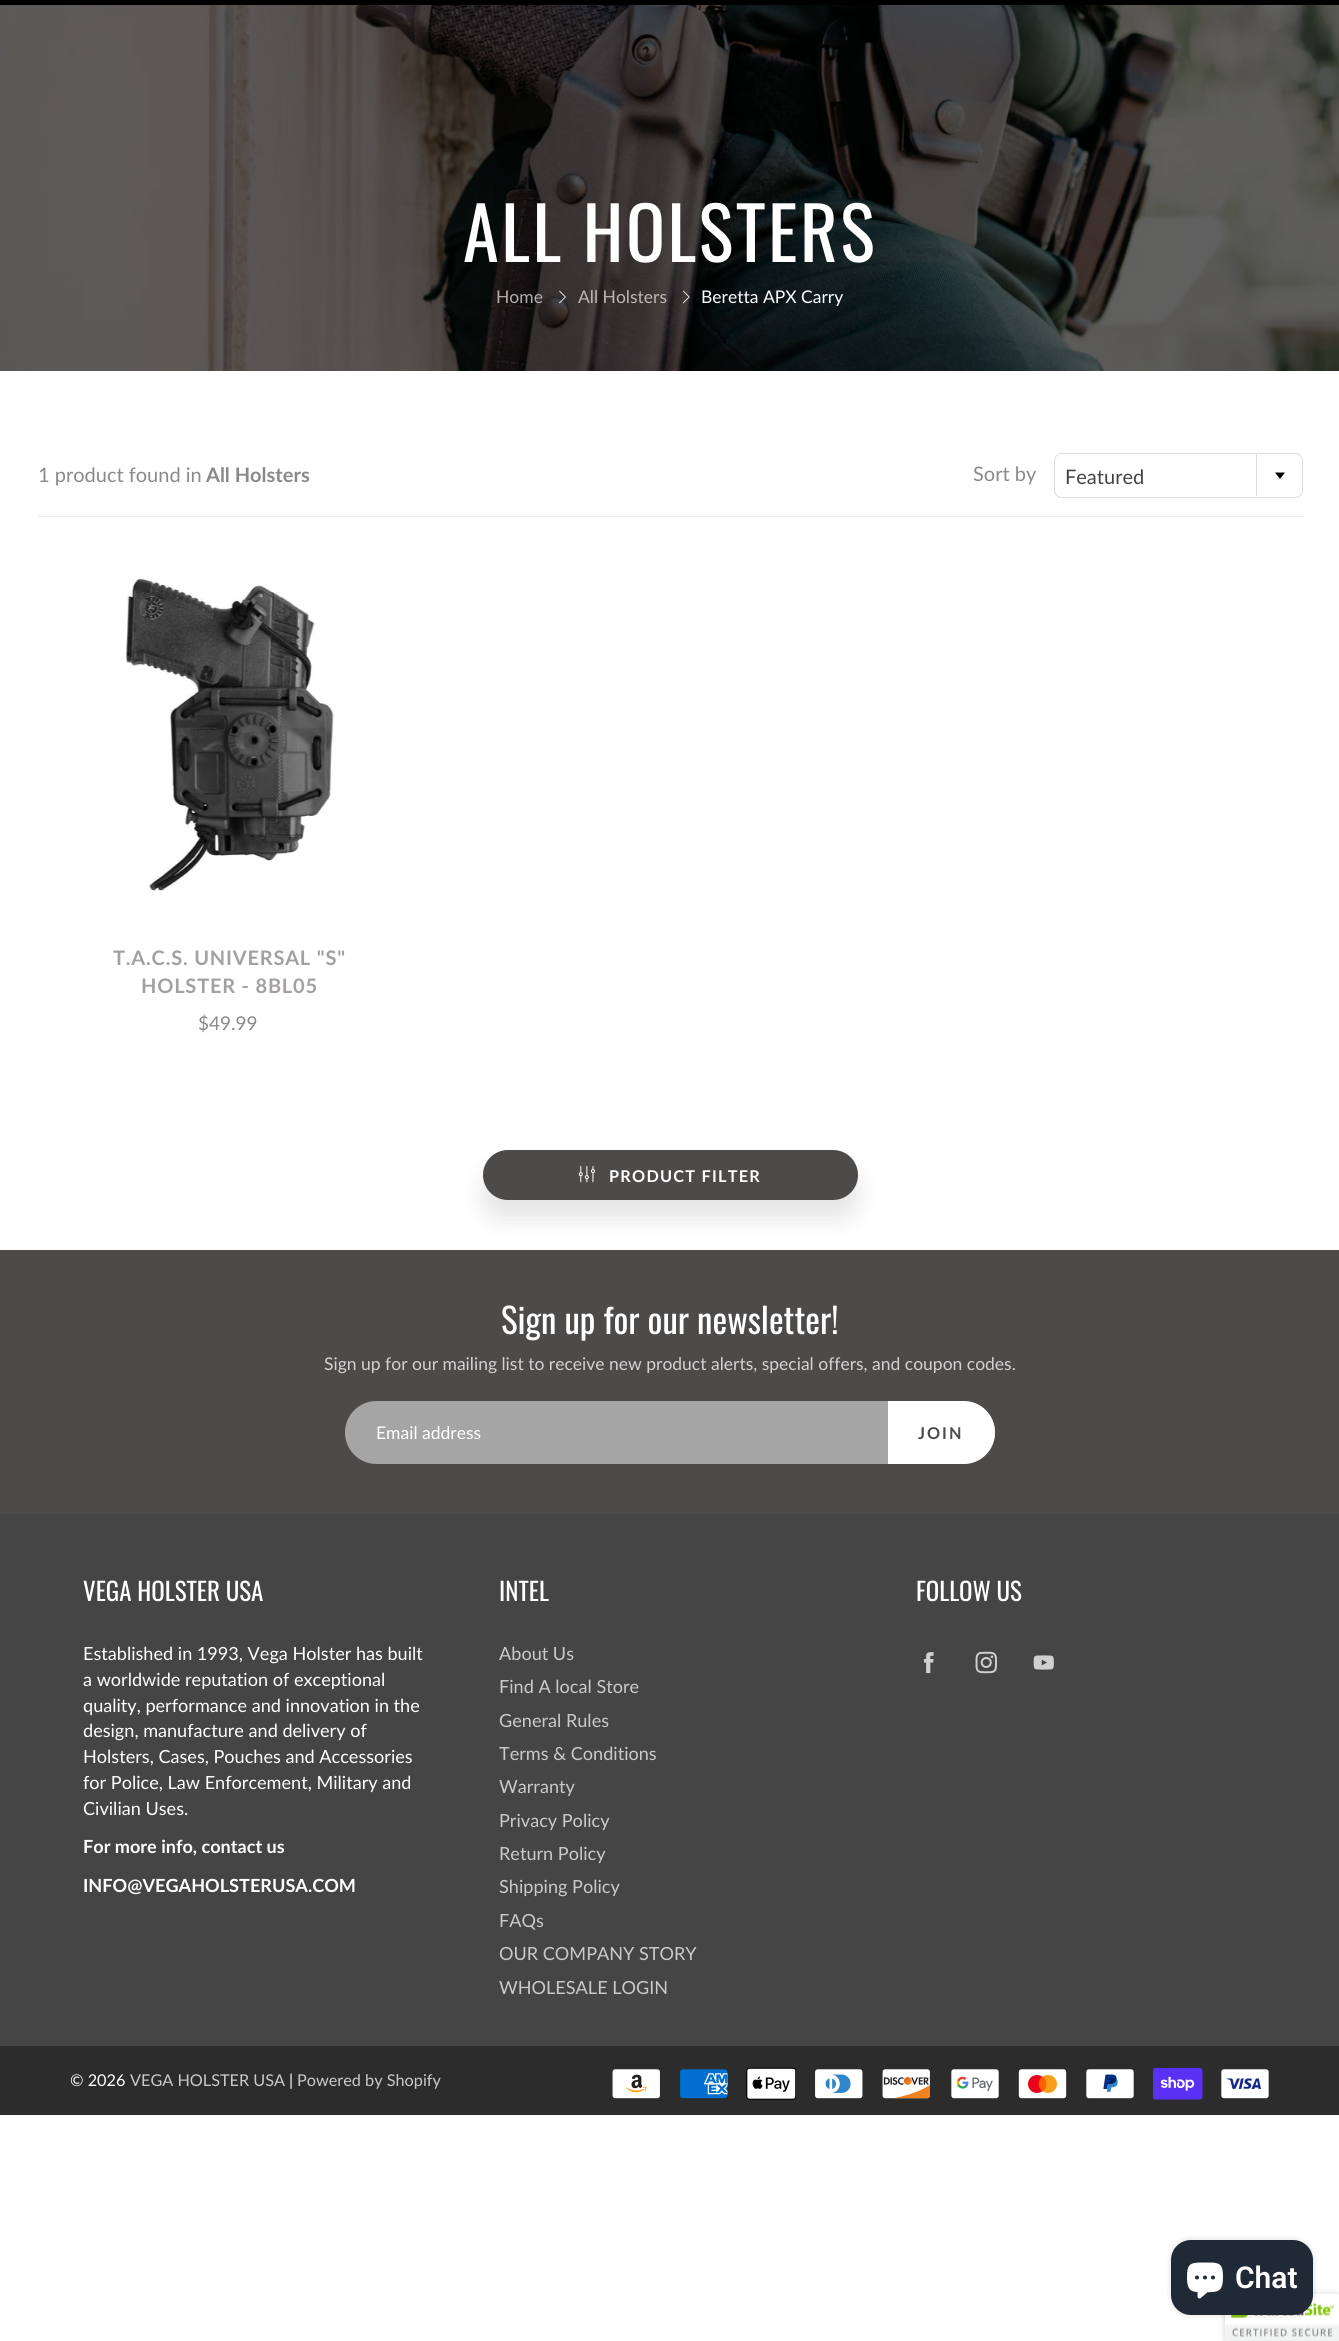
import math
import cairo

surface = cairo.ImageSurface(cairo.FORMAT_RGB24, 1339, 2341)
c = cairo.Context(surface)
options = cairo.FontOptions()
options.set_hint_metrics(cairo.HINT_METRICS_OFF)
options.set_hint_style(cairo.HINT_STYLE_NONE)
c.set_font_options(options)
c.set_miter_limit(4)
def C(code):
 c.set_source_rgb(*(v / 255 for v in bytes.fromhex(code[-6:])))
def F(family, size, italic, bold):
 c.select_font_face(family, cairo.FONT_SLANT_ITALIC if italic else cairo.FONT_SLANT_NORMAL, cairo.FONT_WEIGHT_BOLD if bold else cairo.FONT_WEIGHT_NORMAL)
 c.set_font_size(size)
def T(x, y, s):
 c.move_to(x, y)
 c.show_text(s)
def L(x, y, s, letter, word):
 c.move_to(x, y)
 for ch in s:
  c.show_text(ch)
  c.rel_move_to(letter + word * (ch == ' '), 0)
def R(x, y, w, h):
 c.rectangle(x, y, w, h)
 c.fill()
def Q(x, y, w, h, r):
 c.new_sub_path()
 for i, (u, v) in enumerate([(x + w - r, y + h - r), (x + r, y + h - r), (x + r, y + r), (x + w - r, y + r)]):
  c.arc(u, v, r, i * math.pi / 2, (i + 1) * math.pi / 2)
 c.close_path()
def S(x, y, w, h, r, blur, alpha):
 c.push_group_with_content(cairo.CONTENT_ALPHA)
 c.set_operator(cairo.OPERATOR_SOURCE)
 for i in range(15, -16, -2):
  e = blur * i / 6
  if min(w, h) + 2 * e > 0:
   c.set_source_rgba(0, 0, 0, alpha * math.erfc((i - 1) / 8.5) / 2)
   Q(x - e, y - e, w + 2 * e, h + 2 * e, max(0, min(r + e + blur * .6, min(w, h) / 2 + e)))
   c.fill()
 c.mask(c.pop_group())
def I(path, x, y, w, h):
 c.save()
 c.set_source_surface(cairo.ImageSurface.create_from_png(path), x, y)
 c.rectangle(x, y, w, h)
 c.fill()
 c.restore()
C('ffffff')
c.paint()
C('000000')
R(0,0,1339,5)
I('1.png',0,5,1339,366)
F('Oswald',72.5,0,0)
C('ffffff')
L(463,262,'ALL HOLSTERS',2.5,0)
F('Lato',17.5,0,0)
C('afadae')
T(496,303,'Home')
I('2.png',559,290,7,14)
C('bab7b7')
T(578,303,'All Holsters')
I('3.png',682,290,8,14)
C('ffffff')
T(701,303,'Beretta APX Carry')
C('ededed')
R(38,516,1265,1)
F('Lato',20,0,0)
C('8b8989')
T(38,482,'1 product found in')
F('Lato',20,0,1)
T(206,482,'All Holsters')
F('Lato',20,0,0)
T(973,481,'Sort by')
Q(1054.5,453.5,248,44,7.5)
C('dddddd')
c.set_line_width(1)
c.stroke()
C('444444')
T(1065,484,'Featured')
C('dddddd')
R(1256,454,1,42)
C('000000')
c.new_path()
c.move_to(1275,472.5)
c.line_to(1285,472.5)
c.line_to(1280,479)
c.close_path()
c.fill()
I('4.png',126,578,208,313)
F('Lato',20,0,1)
C('a4a0a0')
L(113,965,'T.A.C.S. UNIVERSAL "S"',.8,0)
L(141,993,'HOLSTER - 8BL05',.8,0)
F('Lato',19,0,0)
C('8b8989')
T(198,1030,'$49.99')
C('4d4a4a')
R(0,1250,1339,264)
C('000000')
S(483,1169,375,50,25,11,.1)
C('4d4a4a')
Q(483,1150,375,50,25)
c.fill()
I('5.png',578,1166,17,17)
F('Lato',16.25,0,1)
C('ffffff')
L(609,1182,'PRODUCT FILTER',1.25,0)
F('Oswald',35,0,0)
T(501,1334,'Sign up for our newsletter!')
F('Lato',17.5,0,0)
C('d3d2d2')
T(324,1370,'Sign up for our mailing list to receive new product alerts, special offers, and coupon codes.')
c.set_source_rgba(1,1,1,0.5)
Q(345,1401,650,63,31.5)
c.fill()
C('ffffff')
T(376,1439,'Email address')
c.new_path()
c.move_to(888,1401)
c.line_to(963.5,1401)
c.curve_to(981,1401,995,1415,995,1432.5)
c.curve_to(995,1450,981,1464,963.5,1464)
c.line_to(888,1464)
c.close_path()
c.fill()
F('Lato',16.25,0,1)
C('4d4a4a')
L(918,1439,'JOIN',2,0)
C('454545')
R(0,1514,1339,532)
F('Oswald',25,0,0)
C('ffffff')
T(83,1601,'VEGA HOLSTER USA')
F('Lato',18.1,0,0)
T(83,1660,'Established in 1993, Vega Holster has built')
T(83,1686,'a worldwide reputation of exceptional')
T(83,1712,'quality, performance and innovation in the')
T(83,1737,'design, manufacture and delivery of')
T(83,1763,'Holsters, Cases, Pouches and Accessories')
T(83,1789,'for Police, Law Enforcement, Military and')
T(83,1815,'Civilian Uses.')
F('Lato',18.1,0,1)
T(83,1853,'For more info, contact us')
T(83,1892,'INFO@VEGAHOLSTERUSA.COM')
F('Oswald',25,0,0)
T(499,1601,'INTEL')
F('Lato',18.1,0,0)
C('cacaca')
T(499,1660,'About Us')
T(499,1693,'Find A local Store')
T(499,1727,'General Rules')
T(499,1760,'Terms & Conditions')
T(499,1793,'Warranty')
T(499,1827,'Privacy Policy')
T(499,1860,'Return Policy')
T(499,1893,'Shipping Policy')
T(499,1927,'FAQs')
T(499,1960,'OUR COMPANY STORY')
T(499,1994,'WHOLESALE LOGIN')
F('Oswald',25,0,0)
C('ffffff')
T(916,1601,'FOLLOW US')
I('6.png',923,1652,11,22)
I('7.png',975,1651,22,23)
I('8.png',1033,1655,21,15)
C('2c2c2c')
R(0,2046,1339,69)
F('Lato',16.25,0,0)
C('ffffff')
T(70,2086,'© 2026')
C('cacaca')
T(130,2086,'VEGA HOLSTER USA')
C('ffffff')
T(289,2086,'|')
C('cacaca')
T(297,2086,'Powered by Shopify')
I('9.png',612,2069,48,30)
I('10.png',680,2069,48,30)
I('11.png',746,2067,50,33)
I('12.png',815,2069,48,30)
I('13.png',882,2069,48,30)
I('14.png',951,2069,48,30)
I('15.png',1018,2069,49,30)
I('16.png',1086,2069,48,30)
I('17.png',1153,2067,50,33)
I('18.png',1221,2069,48,30)
C('000000')
S(1225,2294,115,47,2.5,3,.2)
I('20.png',1225,2293,114,48)
S(1171,2240,142,75,20,3,.15)
C('202a36')
Q(1171,2240,142,75,20)
c.fill()
I('19.png',1187,2262,36,37)
F('Roboto SemiBold',30,0,0)
C('ffffff')
T(1235,2288,'Chat')
surface.write_to_png('o.png')
